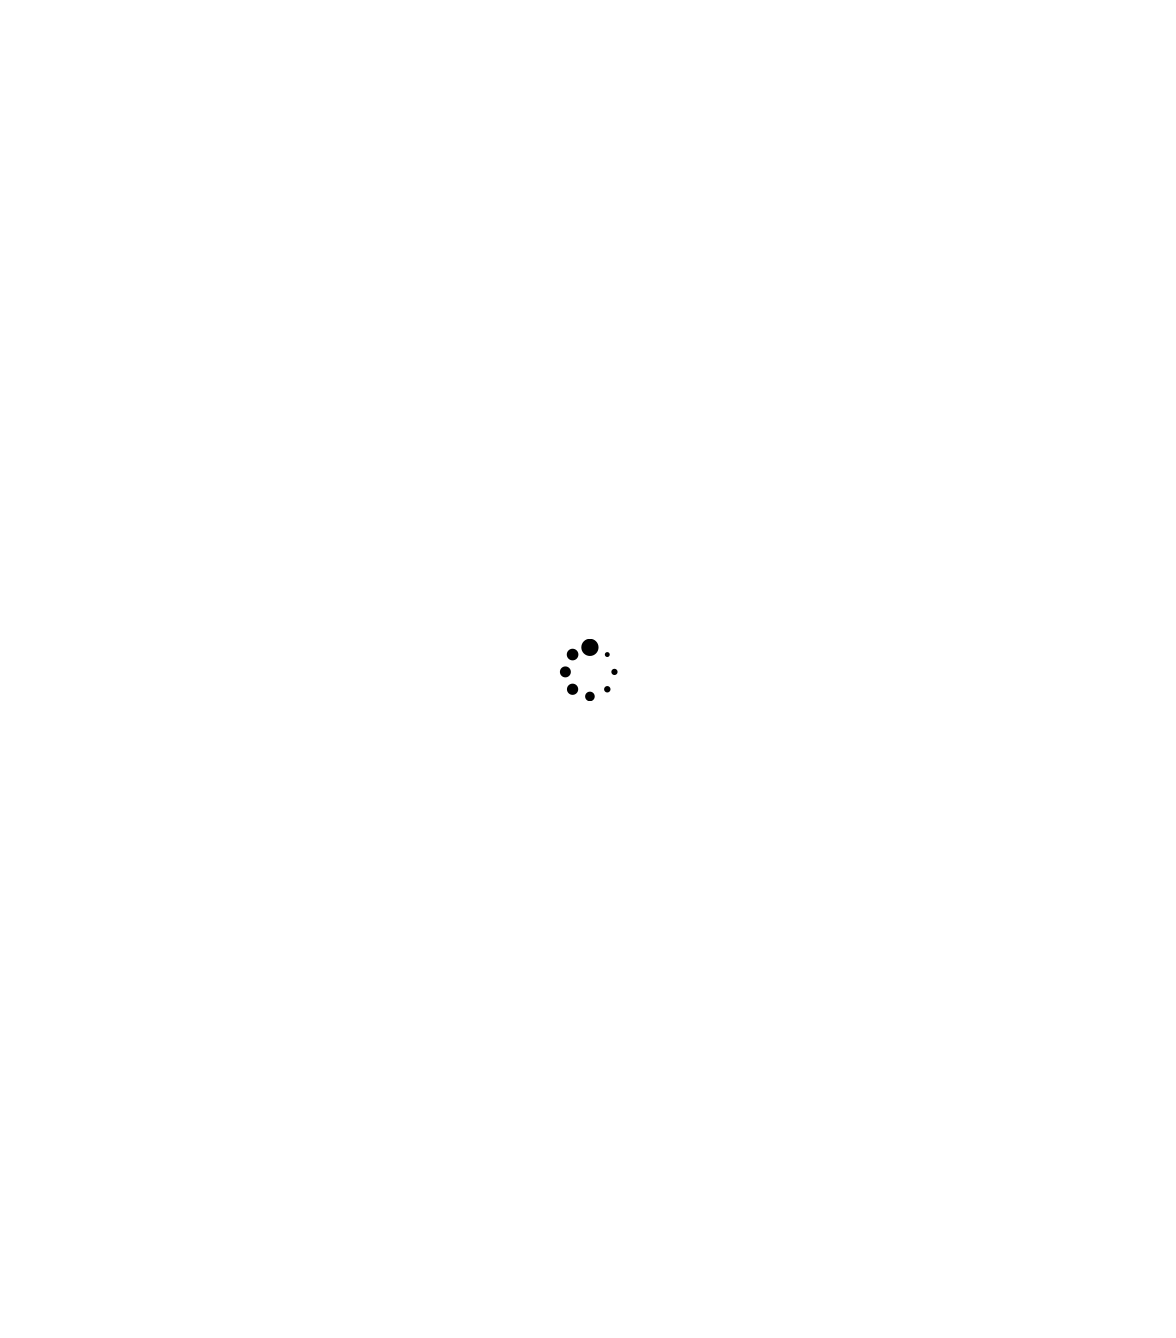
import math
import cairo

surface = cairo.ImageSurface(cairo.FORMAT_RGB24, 1176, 1338)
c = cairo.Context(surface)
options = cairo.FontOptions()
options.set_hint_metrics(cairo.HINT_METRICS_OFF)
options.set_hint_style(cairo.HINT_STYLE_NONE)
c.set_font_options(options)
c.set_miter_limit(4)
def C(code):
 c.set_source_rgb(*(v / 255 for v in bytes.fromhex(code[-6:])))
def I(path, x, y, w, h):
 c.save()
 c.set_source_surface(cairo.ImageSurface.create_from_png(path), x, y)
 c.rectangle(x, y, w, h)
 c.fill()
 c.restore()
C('ffffff')
c.paint()
I('1.png',559,639,59,62)
surface.write_to_png('o.png')
